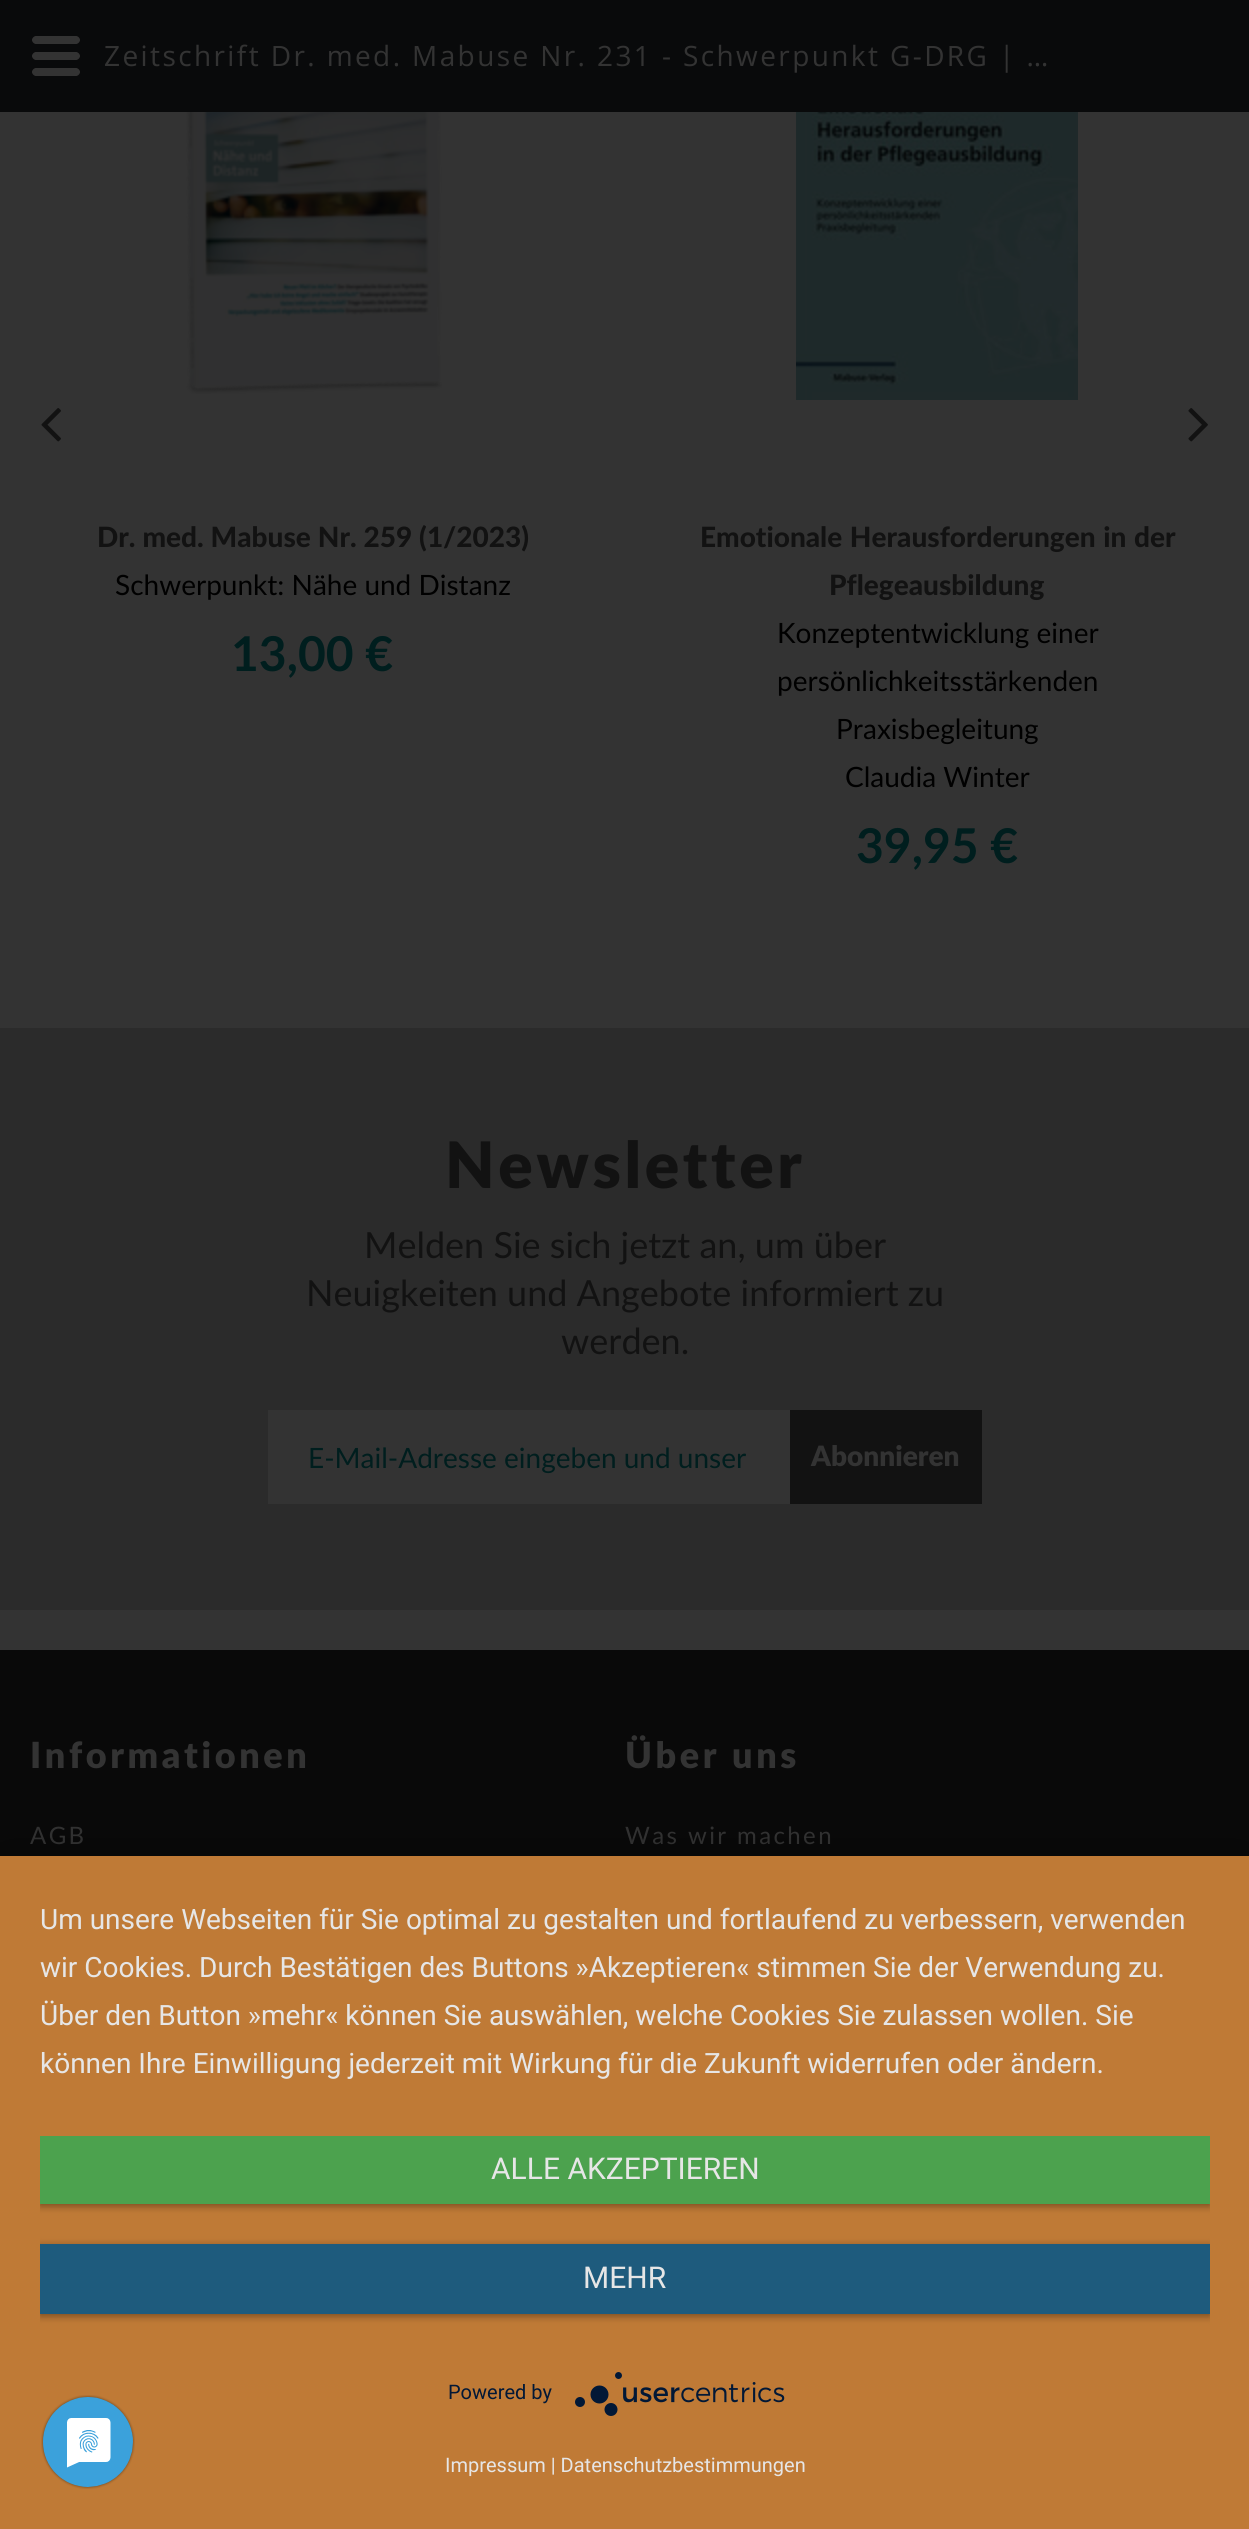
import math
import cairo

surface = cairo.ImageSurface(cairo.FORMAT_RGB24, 1249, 2529)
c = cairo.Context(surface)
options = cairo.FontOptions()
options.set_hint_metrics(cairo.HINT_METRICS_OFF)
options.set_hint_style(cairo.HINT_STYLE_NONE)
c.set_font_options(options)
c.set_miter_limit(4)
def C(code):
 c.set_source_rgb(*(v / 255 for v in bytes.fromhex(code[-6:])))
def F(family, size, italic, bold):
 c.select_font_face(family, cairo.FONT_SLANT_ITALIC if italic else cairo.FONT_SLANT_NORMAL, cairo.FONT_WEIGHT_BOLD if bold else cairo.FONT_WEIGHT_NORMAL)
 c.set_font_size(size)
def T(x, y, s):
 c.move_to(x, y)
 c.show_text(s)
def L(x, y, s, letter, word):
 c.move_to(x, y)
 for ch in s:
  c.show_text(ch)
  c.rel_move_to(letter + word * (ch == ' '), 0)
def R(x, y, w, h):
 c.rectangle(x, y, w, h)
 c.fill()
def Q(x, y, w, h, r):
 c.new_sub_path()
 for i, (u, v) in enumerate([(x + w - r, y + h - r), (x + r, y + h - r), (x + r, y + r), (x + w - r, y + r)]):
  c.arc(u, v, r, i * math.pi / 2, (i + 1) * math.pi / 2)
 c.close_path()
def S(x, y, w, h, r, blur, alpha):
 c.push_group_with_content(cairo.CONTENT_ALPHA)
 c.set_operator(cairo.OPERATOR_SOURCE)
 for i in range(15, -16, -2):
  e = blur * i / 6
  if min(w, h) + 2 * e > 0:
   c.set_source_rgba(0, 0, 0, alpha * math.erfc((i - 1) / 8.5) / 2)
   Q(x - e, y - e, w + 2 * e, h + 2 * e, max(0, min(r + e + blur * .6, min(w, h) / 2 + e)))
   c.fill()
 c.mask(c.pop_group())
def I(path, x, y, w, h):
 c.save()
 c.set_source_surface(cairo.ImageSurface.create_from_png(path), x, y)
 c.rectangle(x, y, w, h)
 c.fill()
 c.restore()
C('333333')
c.paint()
C('090a0b')
R(0,0,1249,112)
C('333333')
c.new_path()
c.move_to(76,60)
c.line_to(36,60)
c.curve_to(34,60,32,58,32,56)
c.curve_to(32,54,34,52,36,52)
c.line_to(76,52)
c.curve_to(78,52,80,54,80,56)
c.curve_to(80,58,78,60,76,60)
c.close_path()
c.move_to(76,76)
c.line_to(36,76)
c.curve_to(34,76,32,74,32,72)
c.curve_to(32,70,34,68,36,68)
c.line_to(76,68)
c.curve_to(78,68,80,70,80,72)
c.curve_to(80,74,78,76,76,76)
c.close_path()
c.move_to(76,44)
c.line_to(36,44)
c.curve_to(34,44,32,42,32,40)
c.curve_to(32,38,34,36,36,36)
c.line_to(76,36)
c.curve_to(78,36,80,38,80,40)
c.curve_to(80,42,78,44,76,44)
c.close_path()
c.fill()
F('Open Sans',28,0,0)
L(104,66,'Zeitschrift Dr. med. Mabuse Nr. 231 - Schwerpunkt G-DRG | …',2.4,0)
I('1.png',41,408,20,34)
I('2.png',1188,408,20,34)
I('3.png',186,112,256,282)
F('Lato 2 Black',28,0,0)
C('121212')
L(97,547,'Dr. med. Mabuse Nr. 259 (1/2023)',0,.25)
F('Lato',28,0,0)
C('000000')
T(115,595,'Schwerpunkt: Nähe und Distanz')
F('Lato',48,0,1)
C('001e1e')
T(231,671,'13,00 €')
I('4.png',796,112,282,288)
F('Lato 2 Black',28,0,0)
C('121212')
L(700,547,'Emotionale Herausforderungen in der',0,1)
T(829,595,'Pflegeausbildung')
F('Lato',28,0,0)
C('000000')
T(777,643,'Konzeptentwicklung einer')
T(777,691,'persönlichkeitsstärkenden')
T(836,739,'Praxisbegleitung')
T(845,787,'Claudia Winter')
F('Lato',48,0,1)
C('001e1e')
T(856,863,'39,95 €')
C('2b2b2b')
R(0,1028,1249,582)
F('Lato Black',64,0,0)
C('121212')
L(445,1188,'Newsletter',3.6,0)
F('Lato',36,0,0)
T(364,1258,'Melden Sie sich jetzt an, um über')
T(306,1306,'Neuigkeiten und Angebote informiert zu')
T(561,1354,'werden.')
C('333333')
R(268,1410,522,94)
F('Lato',28,0,0)
C('001e1e')
T(308,1468,'E-Mail-Adresse eingeben und unser')
C('121212')
R(790,1410,192,94)
F('Lato Black',28,0,0)
C('333333')
T(811,1466,'Abonnieren')
C('090909')
R(0,1650,1249,206)
F('Lato Black',36,0,0)
C('333333')
L(30,1768,'Informationen',3.6,0)
F('Lato',24,0,0)
L(30,1844,'AGB',2.4,0)
F('Lato Black',36,0,0)
L(625,1768,'Über uns',3.6,0)
F('Lato',24,0,0)
L(625,1844,'Was wir machen',2.4,0)
C('000000')
S(0,1868,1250,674,0,36,.3)
C('bf7a36')
R(0,1856,1249,673)
F('Roboto',28,0,0)
C('e6e6e6')
T(40,1929,'Um unsere Webseiten für Sie optimal zu gestalten und fortlaufend zu verbessern, verwenden')
T(40,1977,'wir Cookies. Durch Bestätigen des Buttons »Akzeptieren« stimmen Sie der Verwendung zu.')
T(40,2025,'Über den Button »mehr« können Sie auswählen, welche Cookies Sie zulassen wollen. Sie')
T(40,2073,'können Ihre Einwilligung jederzeit mit Wirkung für die Zukunft widerrufen oder ändern.')
c.save()
c.rectangle(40,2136,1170,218)
c.clip()
C('000000')
S(40,2138,1170,68,0,4,.4)
c.restore()
C('4ca24e')
R(40,2136,1170,68)
F('Roboto',30,0,0)
C('e6e6e6')
T(491,2179,'ALLE AKZEPTIEREN')
c.save()
c.rectangle(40,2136,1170,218)
c.clip()
C('000000')
S(40,2246,1170,70,0,4,.4)
c.restore()
C('1e5b7d')
R(40,2244,1170,70)
C('e6e6e6')
T(583,2288,'MEHR')
F('Roboto',20,0,0)
C('021836')
T(448,2399,'Powered by')
I('5.png',575,2372,210,44)
C('e6e6e6')
T(445,2472,'Impressum | Datenschutzbestimmungen')
I('6.png',41,2395,94,94)
surface.write_to_png('o.png')
